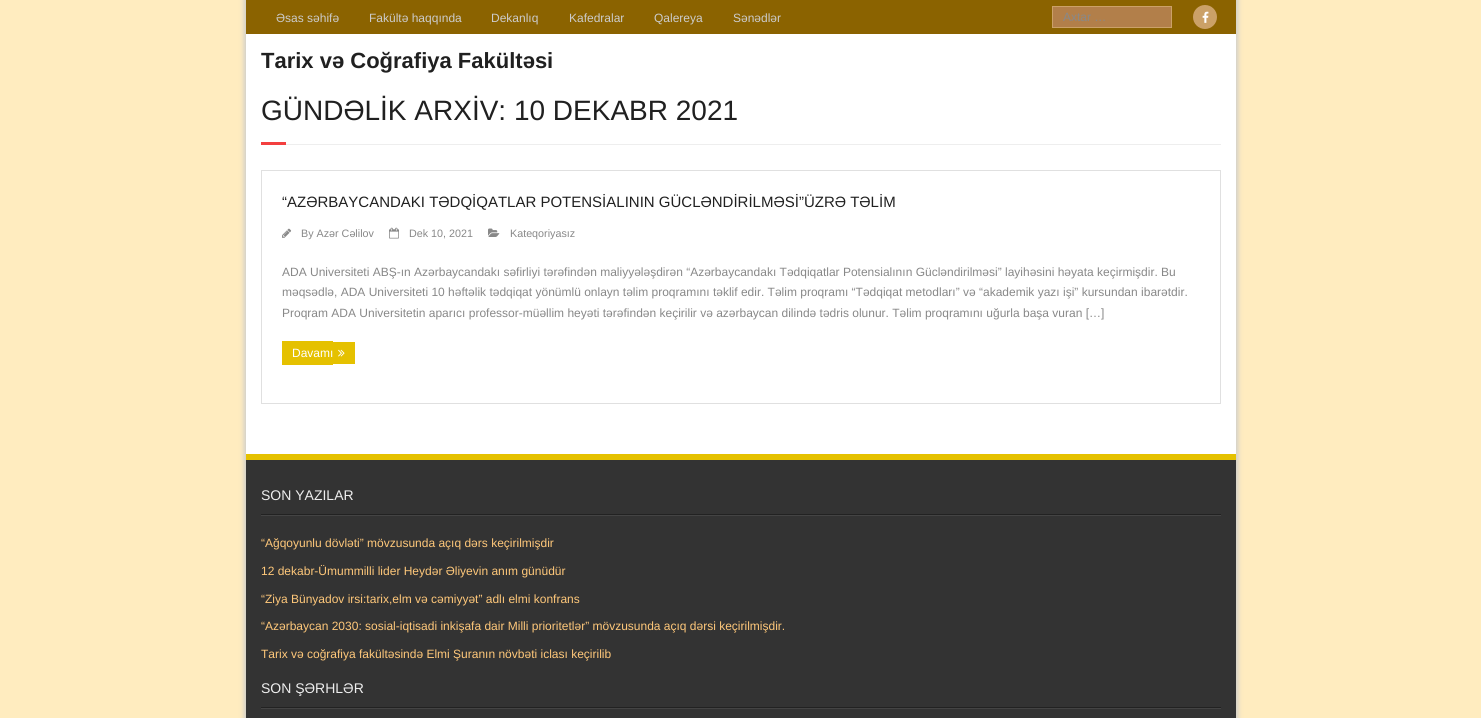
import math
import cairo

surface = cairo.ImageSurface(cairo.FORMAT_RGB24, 1481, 718)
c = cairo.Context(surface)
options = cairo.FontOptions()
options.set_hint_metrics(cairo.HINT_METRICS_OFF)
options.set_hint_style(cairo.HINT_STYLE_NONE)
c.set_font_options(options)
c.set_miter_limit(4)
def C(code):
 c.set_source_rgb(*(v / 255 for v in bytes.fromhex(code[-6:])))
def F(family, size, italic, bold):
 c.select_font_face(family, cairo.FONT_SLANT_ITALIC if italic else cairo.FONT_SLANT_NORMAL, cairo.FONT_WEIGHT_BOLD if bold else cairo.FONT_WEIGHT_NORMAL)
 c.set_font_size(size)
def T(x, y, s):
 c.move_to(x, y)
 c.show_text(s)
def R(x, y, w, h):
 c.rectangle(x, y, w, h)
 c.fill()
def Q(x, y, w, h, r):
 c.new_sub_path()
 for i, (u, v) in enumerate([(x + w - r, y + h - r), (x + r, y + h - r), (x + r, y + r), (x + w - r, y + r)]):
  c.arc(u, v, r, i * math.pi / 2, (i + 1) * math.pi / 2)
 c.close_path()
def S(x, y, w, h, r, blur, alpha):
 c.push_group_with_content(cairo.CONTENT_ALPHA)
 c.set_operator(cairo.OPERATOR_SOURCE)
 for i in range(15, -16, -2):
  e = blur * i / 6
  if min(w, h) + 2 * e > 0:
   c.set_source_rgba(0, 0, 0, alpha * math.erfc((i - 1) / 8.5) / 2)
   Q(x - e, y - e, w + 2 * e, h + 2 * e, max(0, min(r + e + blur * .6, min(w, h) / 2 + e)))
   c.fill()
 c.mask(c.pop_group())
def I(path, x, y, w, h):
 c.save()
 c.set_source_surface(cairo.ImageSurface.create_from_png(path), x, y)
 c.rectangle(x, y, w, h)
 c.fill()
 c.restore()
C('ffecbf')
c.paint()
C('cccccc')
S(244,-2,994,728,0,2.5,1)
C('ffffff')
R(246,34,990,420)
C('8b6300')
R(246,0,990,34)
F('Liberation Sans',12,0,0)
C('cccccc')
T(276,22,'Əsas səhifə')
T(369,22,'Fakültə haqqında')
T(491,22,'Dekanlıq')
T(569,22,'Kafedralar')
T(654,22,'Qalereya')
T(733,22,'Sənədlər')
C('b27f4a')
c.rectangle(1052.5,6.5,119,21)
c.fill_preserve()
C('cba168')
c.set_line_width(1)
c.stroke()
C('888888')
T(1063,21,'Axtar …')
C('cba168')
c.new_path()
c.arc(1205,17,12,0,2 * math.pi)
c.fill()
I('1.png',1202,11,7,12)
F('Liberation Sans',22,0,1)
C('202020')
T(261,68,'Tarix və Coğrafiya Fakültəsi')
F('Liberation Sans',28,0,0)
T(261,120,'GÜNDƏLİK ARXİV: 10 DEKABR 2021')
C('f33f3f')
R(261,142,25,3)
C('eeeeee')
R(286,144,935,1)
c.rectangle(261.5,170.5,959,233)
C('e0e0e0')
c.stroke()
F('Liberation Sans',15,0,0)
C('202020')
T(282,207,'“AZƏRBAYCANDAKI TƏDQİQATLAR POTENSİALININ GÜCLƏNDİRİLMƏSİ”ÜZRƏ TƏLİM')
I('2.png',282,228,10,10)
F('Liberation Sans',10.75,0,0)
C('888888')
T(301,237,'By Azər Cəlilov')
I('3.png',389,227,10,12)
T(409,237,'Dek 10, 2021')
I('4.png',488,228,12,9)
T(510,237,'Kateqoriyasız')
F('Liberation Sans',12,0,0)
T(282,276,'ADA Universiteti ABŞ-ın Azərbaycandakı səfirliyi tərəfindən maliyyələşdirən “Azərbaycandakı Tədqiqatlar Potensialının Gücləndirilməsi” layihəsini həyata keçirmişdir. Bu')
T(282,296,'məqsədlə, ADA Universiteti 10 həftəlik tədqiqat yönümlü onlayn təlim proqramını təklif edir. Təlim proqramı “Tədqiqat metodları” və “akademik yazı işi” kursundan ibarətdir.')
T(282,317,'Proqram ADA Universitetin aparıcı professor-müəllim heyəti tərəfindən keçirilir və azərbaycan dilində tədris olunur. Təlim proqramını uğurla başa vuran […]')
C('e5c100')
R(282,341,51,24)
C('ffffff')
T(292,357,'Davamı')
C('e5c100')
R(333,342,22,22)
I('5.png',338,349,7,8)
C('333333')
R(246,460,990,258)
C('e5c100')
R(246,454,990,6)
C('444444')
R(261,515,960,1)
C('222222')
R(261,514,960,1)
F('Liberation Sans',14,0,0)
C('eeeeee')
T(261,500,'SON YAZILAR')
F('Liberation Sans',12,0,0)
C('ffc87a')
T(261,547,'“Ağqoyunlu dövləti” mövzusunda açıq dərs keçirilmişdir')
T(261,575,'12 dekabr-Ümummilli lider Heydər Əliyevin anım günüdür')
T(261,603,'“Ziya Bünyadov irsi:tarix,elm və cəmiyyət” adlı elmi konfrans')
T(261,630,'“Azərbaycan 2030: sosial-iqtisadi inkişafa dair Milli prioritetlər” mövzusunda açıq dərsi keçirilmişdir.')
T(261,658,'Tarix və coğrafiya fakültəsində Elmi Şuranın növbəti iclası keçirilib')
C('444444')
R(261,708,960,1)
C('222222')
R(261,707,960,1)
F('Liberation Sans',14,0,0)
C('eeeeee')
T(261,693,'SON ŞƏRHLƏR')
surface.write_to_png('o.png')
